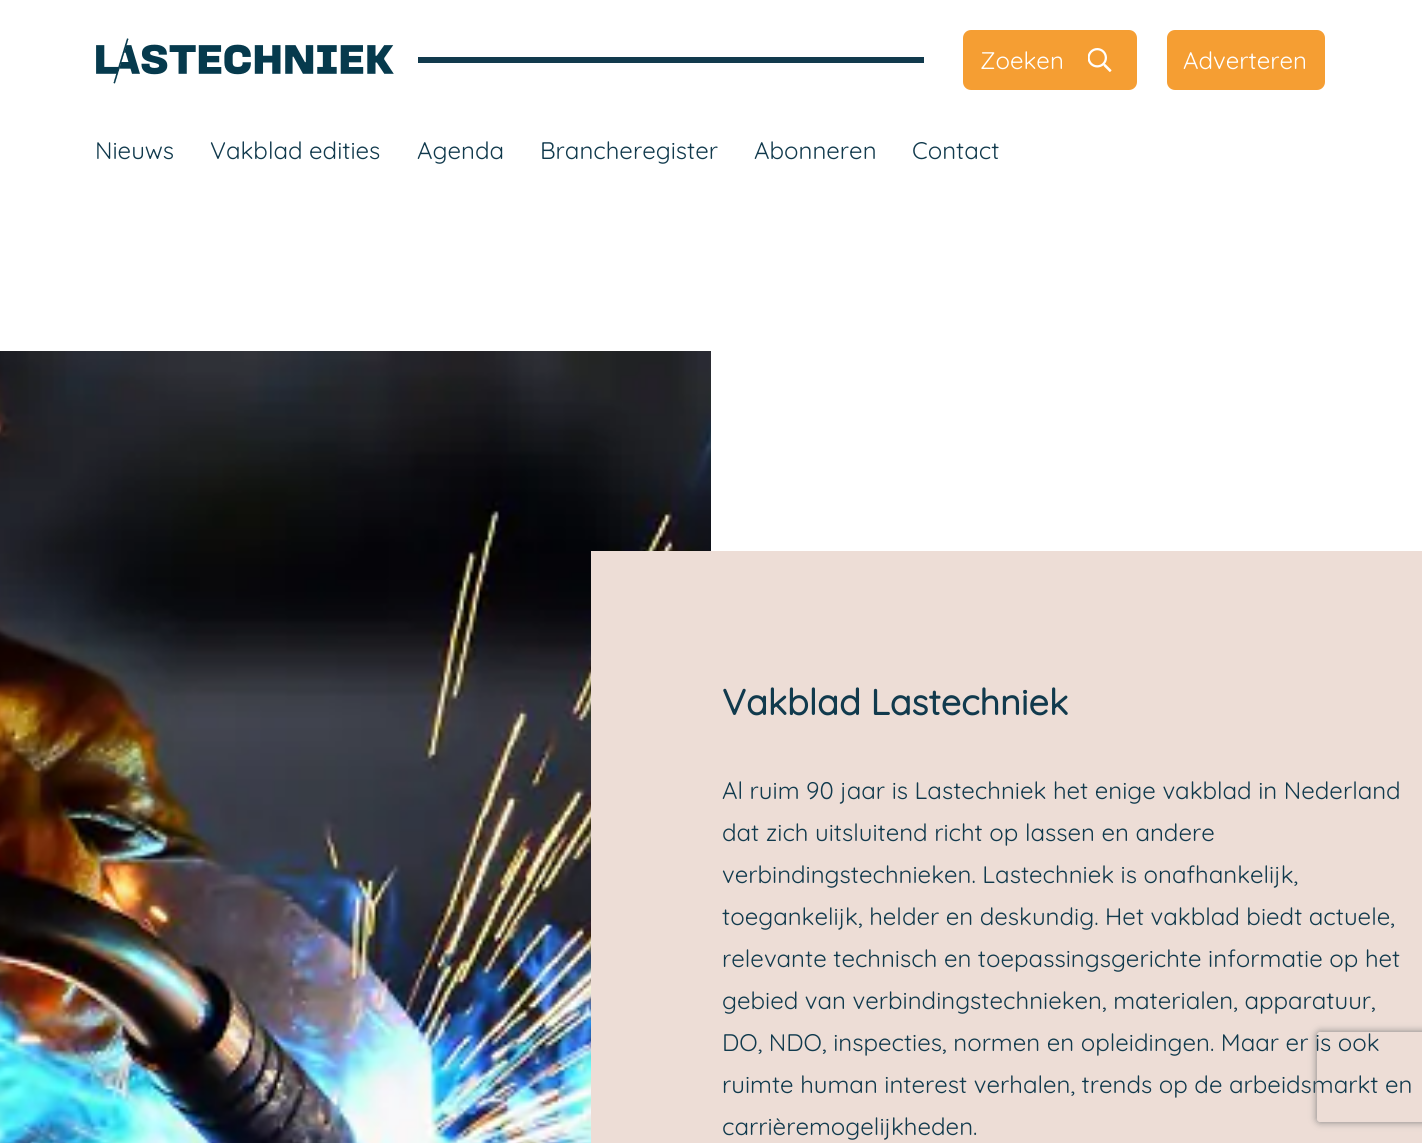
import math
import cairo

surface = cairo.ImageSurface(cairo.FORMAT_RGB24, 1422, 1143)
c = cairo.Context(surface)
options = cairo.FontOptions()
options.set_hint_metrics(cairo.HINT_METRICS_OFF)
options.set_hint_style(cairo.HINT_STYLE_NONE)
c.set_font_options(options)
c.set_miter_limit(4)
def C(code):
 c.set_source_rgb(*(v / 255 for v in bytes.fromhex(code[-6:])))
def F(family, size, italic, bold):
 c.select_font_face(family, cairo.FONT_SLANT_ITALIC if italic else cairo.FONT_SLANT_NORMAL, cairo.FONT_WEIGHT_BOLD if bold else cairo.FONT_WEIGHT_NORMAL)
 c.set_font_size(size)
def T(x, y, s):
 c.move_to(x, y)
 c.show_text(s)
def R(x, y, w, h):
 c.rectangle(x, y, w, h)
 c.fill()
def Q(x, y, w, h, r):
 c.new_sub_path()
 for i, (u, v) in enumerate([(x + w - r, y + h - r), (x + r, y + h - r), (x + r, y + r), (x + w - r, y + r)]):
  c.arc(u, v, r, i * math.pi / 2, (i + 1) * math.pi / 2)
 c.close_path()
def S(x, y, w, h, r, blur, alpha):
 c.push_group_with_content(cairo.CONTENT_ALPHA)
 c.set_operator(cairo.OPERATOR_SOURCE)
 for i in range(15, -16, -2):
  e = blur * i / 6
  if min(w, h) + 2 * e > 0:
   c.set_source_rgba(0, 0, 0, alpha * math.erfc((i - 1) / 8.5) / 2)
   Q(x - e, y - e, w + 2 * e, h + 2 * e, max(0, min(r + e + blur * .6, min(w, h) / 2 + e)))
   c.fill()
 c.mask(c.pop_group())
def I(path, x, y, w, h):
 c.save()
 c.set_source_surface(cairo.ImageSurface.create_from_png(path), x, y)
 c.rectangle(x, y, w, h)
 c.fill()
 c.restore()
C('ffffff')
c.paint()
I('1.png',96,38,298,46)
C('113a4d')
R(418,57,506,6)
C('f59e33')
Q(964,31,172,58,7)
c.fill_preserve()
c.stroke()
F('Quicksand Light',24,0,0)
C('ffffff')
T(980,69,'Zoeken')
I('2.png',1088,48,24,24)
C('f59e33')
Q(1168,31,156,58,7)
c.fill_preserve()
c.stroke()
C('ffffff')
T(1183,69,'Adverteren')
C('113a4d')
T(95,159,'Nieuws')
T(210,159,'Vakblad edities')
T(417,159,'Agenda')
T(540,159,'Brancheregister')
T(754,159,'Abonneren')
T(912,159,'Contact')
I('3.png',0,351,711,792)
C('edddd6')
R(591,551,831,592)
F('Quicksand',36,0,1)
C('113a4d')
T(722,715,'Vakblad Lastechniek')
F('Quicksand Light',24,0,0)
T(722,799,'Al ruim 90 jaar is Lastechniek het enige vakblad in Nederland')
T(722,841,'dat zich uitsluitend richt op lassen en andere')
T(722,883,'verbindingstechnieken. Lastechniek is onafhankelijk,')
T(722,925,'toegankelijk, helder en deskundig. Het vakblad biedt actuele,')
T(722,967,'relevante technisch en toepassingsgerichte informatie op het')
T(722,1009,'gebied van verbindingstechnieken, materialen, apparatuur,')
T(722,1051,'DO, NDO, inspecties, normen en opleidingen. Maar er is ook')
T(722,1093,'ruimte human interest verhalen, trends op de arbeidsmarkt en')
T(722,1135,'carrièremogelijkheden.')
c.save()
c.set_fill_rule(cairo.FILL_RULE_EVEN_ODD)
c.new_path()
c.move_to(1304,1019)
c.line_to(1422,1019)
c.line_to(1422,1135)
c.line_to(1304,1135)
c.close_path()
c.move_to(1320,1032)
c.line_to(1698,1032)
c.curve_to(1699.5,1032,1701,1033.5,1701,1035)
c.line_to(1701,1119)
c.curve_to(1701,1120.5,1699.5,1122,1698,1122)
c.line_to(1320,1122)
c.curve_to(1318.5,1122,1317,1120.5,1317,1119)
c.line_to(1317,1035)
c.curve_to(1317,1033.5,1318.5,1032,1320,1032)
c.close_path()
c.clip()
C('808080')
S(1317,1032,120,90,3,4,1)
c.restore()
surface.write_to_png('o.png')
